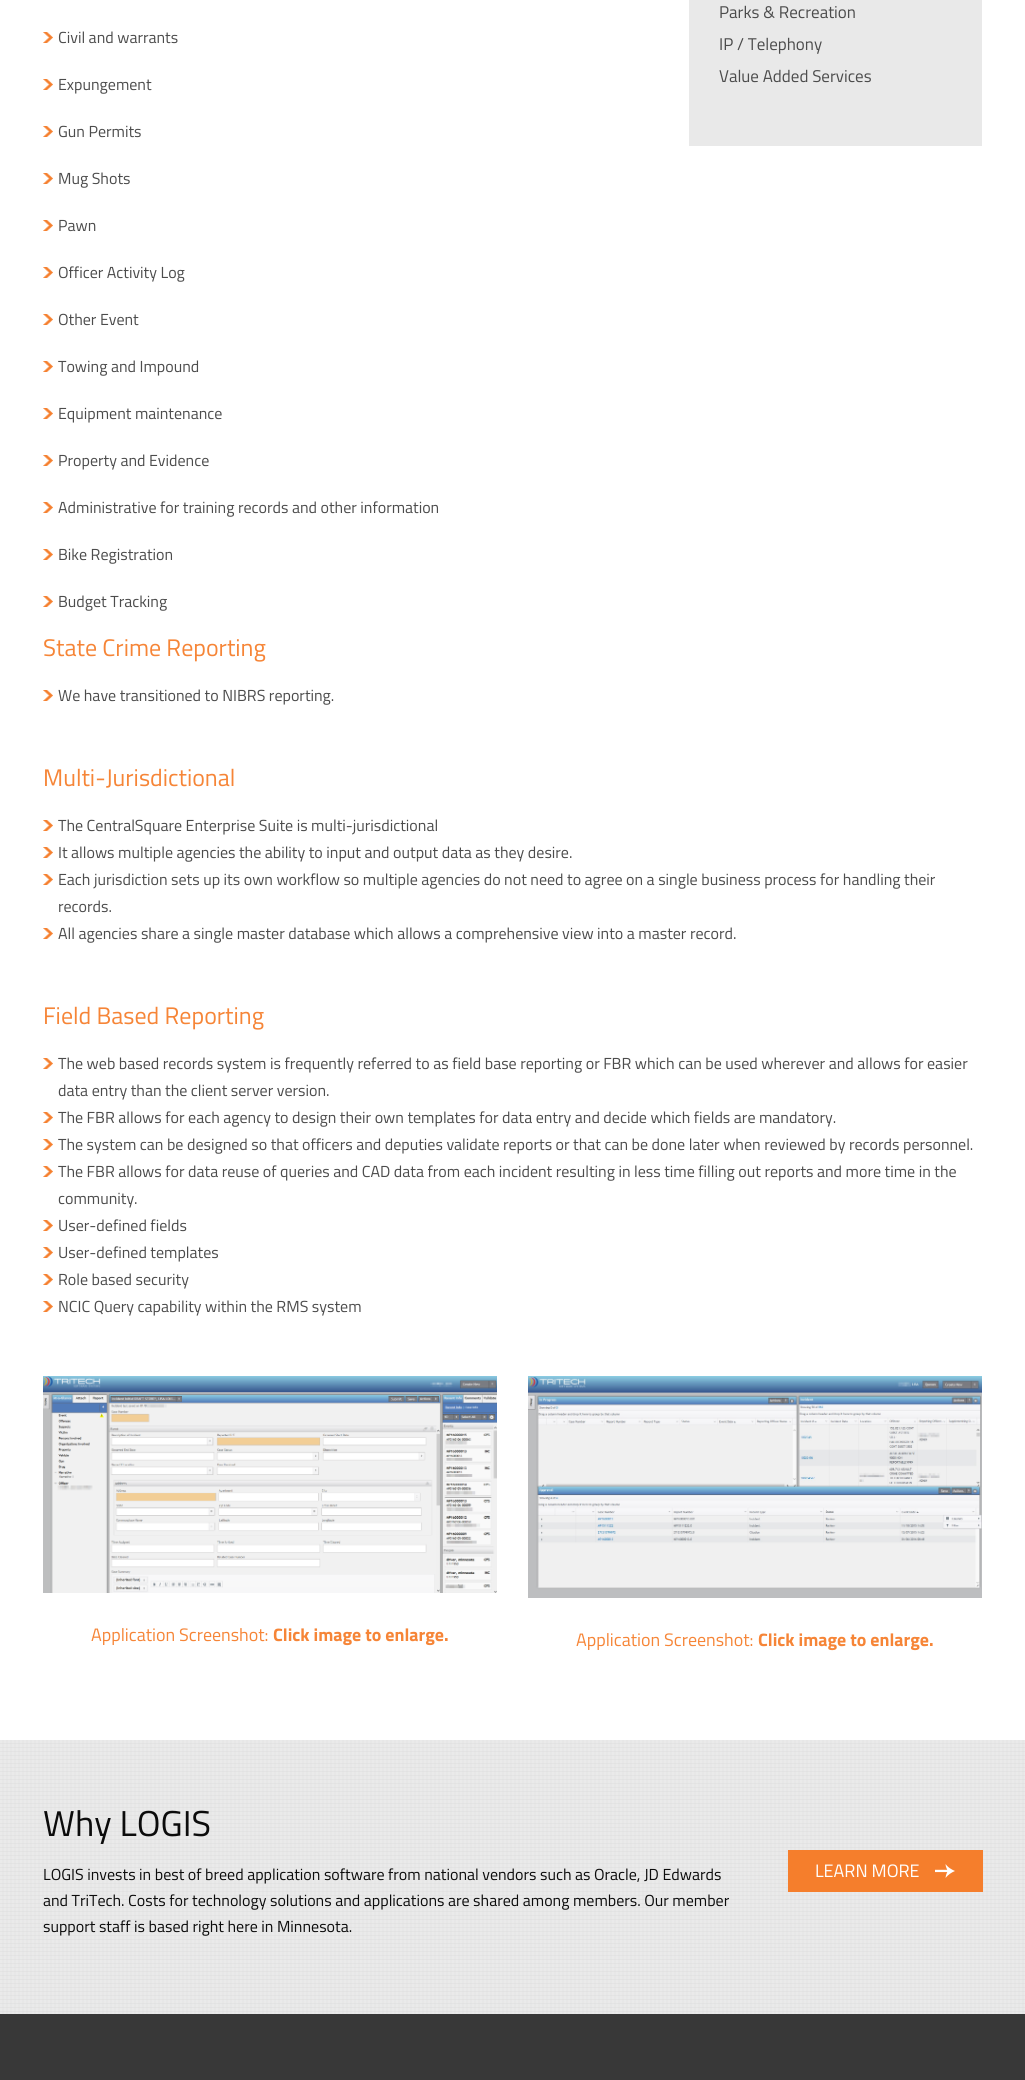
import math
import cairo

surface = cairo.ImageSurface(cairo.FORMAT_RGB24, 1025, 2080)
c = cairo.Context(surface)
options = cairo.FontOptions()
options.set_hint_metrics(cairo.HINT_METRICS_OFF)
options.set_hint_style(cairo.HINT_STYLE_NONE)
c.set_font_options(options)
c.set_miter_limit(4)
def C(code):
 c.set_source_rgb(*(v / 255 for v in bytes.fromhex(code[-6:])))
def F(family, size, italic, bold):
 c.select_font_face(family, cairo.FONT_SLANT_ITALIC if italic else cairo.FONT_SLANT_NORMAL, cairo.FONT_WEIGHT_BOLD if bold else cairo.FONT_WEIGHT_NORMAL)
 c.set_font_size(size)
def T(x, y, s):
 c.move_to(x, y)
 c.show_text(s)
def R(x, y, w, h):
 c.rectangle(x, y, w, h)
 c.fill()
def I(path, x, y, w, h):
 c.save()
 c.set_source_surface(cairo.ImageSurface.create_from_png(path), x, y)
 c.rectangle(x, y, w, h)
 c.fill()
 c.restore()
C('ffffff')
c.paint()
I('1.png',0,1740,1025,274)
I('2.png',43,32,10,11)
F('Titillium Web',16,0,0)
C('4c4c4c')
T(58,43,'Civil and warrants')
I('2.png',43,79,10,11)
T(58,90,'Expungement')
I('2.png',43,126,10,11)
T(58,137,'Gun Permits')
I('2.png',43,173,10,11)
T(58,184,'Mug Shots')
I('2.png',43,220,10,11)
T(58,231,'Pawn')
I('2.png',43,267,10,11)
T(58,278,'Officer Activity Log')
I('2.png',43,314,10,11)
T(58,325,'Other Event')
I('2.png',43,361,10,11)
T(58,372,'Towing and Impound')
I('2.png',43,408,10,11)
T(58,419,'Equipment maintenance')
I('2.png',43,455,10,11)
T(58,466,'Property and Evidence')
I('2.png',43,502,10,11)
T(58,513,'Administrative for training records and other information')
I('2.png',43,549,10,11)
T(58,560,'Bike Registration')
I('2.png',43,596,10,11)
T(58,607,'Budget Tracking')
C('e9e9e9')
R(689,0,293,146)
F('Titillium Web',17,0,0)
C('4c4c4c')
T(719,18,'Parks & Recreation')
T(719,50,'IP / Telephony')
T(719,82,'Value Added Services')
F('Titillium Web',24,0,0)
C('f68537')
T(43,656,'State Crime Reporting')
I('2.png',43,690,10,11)
F('Titillium Web',16,0,0)
C('4c4c4c')
T(58,701,'We have transitioned to NIBRS reporting.')
F('Titillium Web',24,0,0)
C('f68537')
T(43,786,'Multi-Jurisdictional')
I('2.png',43,820,10,11)
F('Titillium Web',16,0,0)
C('4c4c4c')
T(58,831,'The CentralSquare Enterprise Suite is multi-jurisdictional')
I('2.png',43,847,10,11)
T(58,858,'It allows multiple agencies the ability to input and output data as they desire.')
I('2.png',43,874,10,11)
T(58,885,'Each jurisdiction sets up its own workflow so multiple agencies do not need to agree on a single business process for handling their')
T(58,912,'records.')
I('2.png',43,928,10,11)
T(58,939,'All agencies share a single master database which allows a comprehensive view into a master record.')
F('Titillium Web',24,0,0)
C('f68537')
T(43,1024,'Field Based Reporting')
I('2.png',43,1058,10,11)
F('Titillium Web',16,0,0)
C('4c4c4c')
T(58,1069,'The web based records system is frequently referred to as field base reporting or FBR which can be used wherever and allows for easier')
T(58,1096,'data entry than the client server version.')
I('2.png',43,1112,10,11)
T(58,1123,'The FBR allows for each agency to design their own templates for data entry and decide which fields are mandatory.')
I('2.png',43,1139,10,11)
T(58,1150,'The system can be designed so that officers and deputies validate reports or that can be done later when reviewed by records personnel.')
I('2.png',43,1166,10,11)
T(58,1177,'The FBR allows for data reuse of queries and CAD data from each incident resulting in less time filling out reports and more time in the')
T(58,1204,'community.')
I('2.png',43,1220,10,11)
T(58,1231,'User-defined fields')
I('2.png',43,1247,10,11)
T(58,1258,'User-defined templates')
I('2.png',43,1274,10,11)
T(58,1285,'Role based security')
I('2.png',43,1301,10,11)
T(58,1312,'NCIC Query capability within the RMS system')
I('3.png',43,1376,454,217)
F('Titillium Web',18,0,0)
C('f68537')
T(91,1641,'Application Screenshot:')
F('Titillium Web',18,0,1)
T(273,1641,'Click image to enlarge.')
I('4.png',528,1376,454,222)
F('Titillium Web',18,0,0)
T(576,1646,'Application Screenshot:')
F('Titillium Web',18,0,1)
T(758,1646,'Click image to enlarge.')
F('Titillium Web',36,0,0)
C('0c0c0c')
T(43,1836,'Why LOGIS')
F('Titillium Web',16,0,0)
T(43,1880,'LOGIS invests in best of breed application software from national vendors such as Oracle, JD Edwards')
T(43,1906,'and TriTech. Costs for technology solutions and applications are shared among members. Our member')
T(43,1932,'support staff is based right here in Minnesota.')
C('f57e2c')
R(788,1850,195,42)
F('Titillium Web',18,0,0)
C('ffffff')
T(815,1877,'LEARN MORE')
I('5.png',935,1864,20,14)
C('383838')
R(0,2014,1025,66)
surface.write_to_png('o.png')
